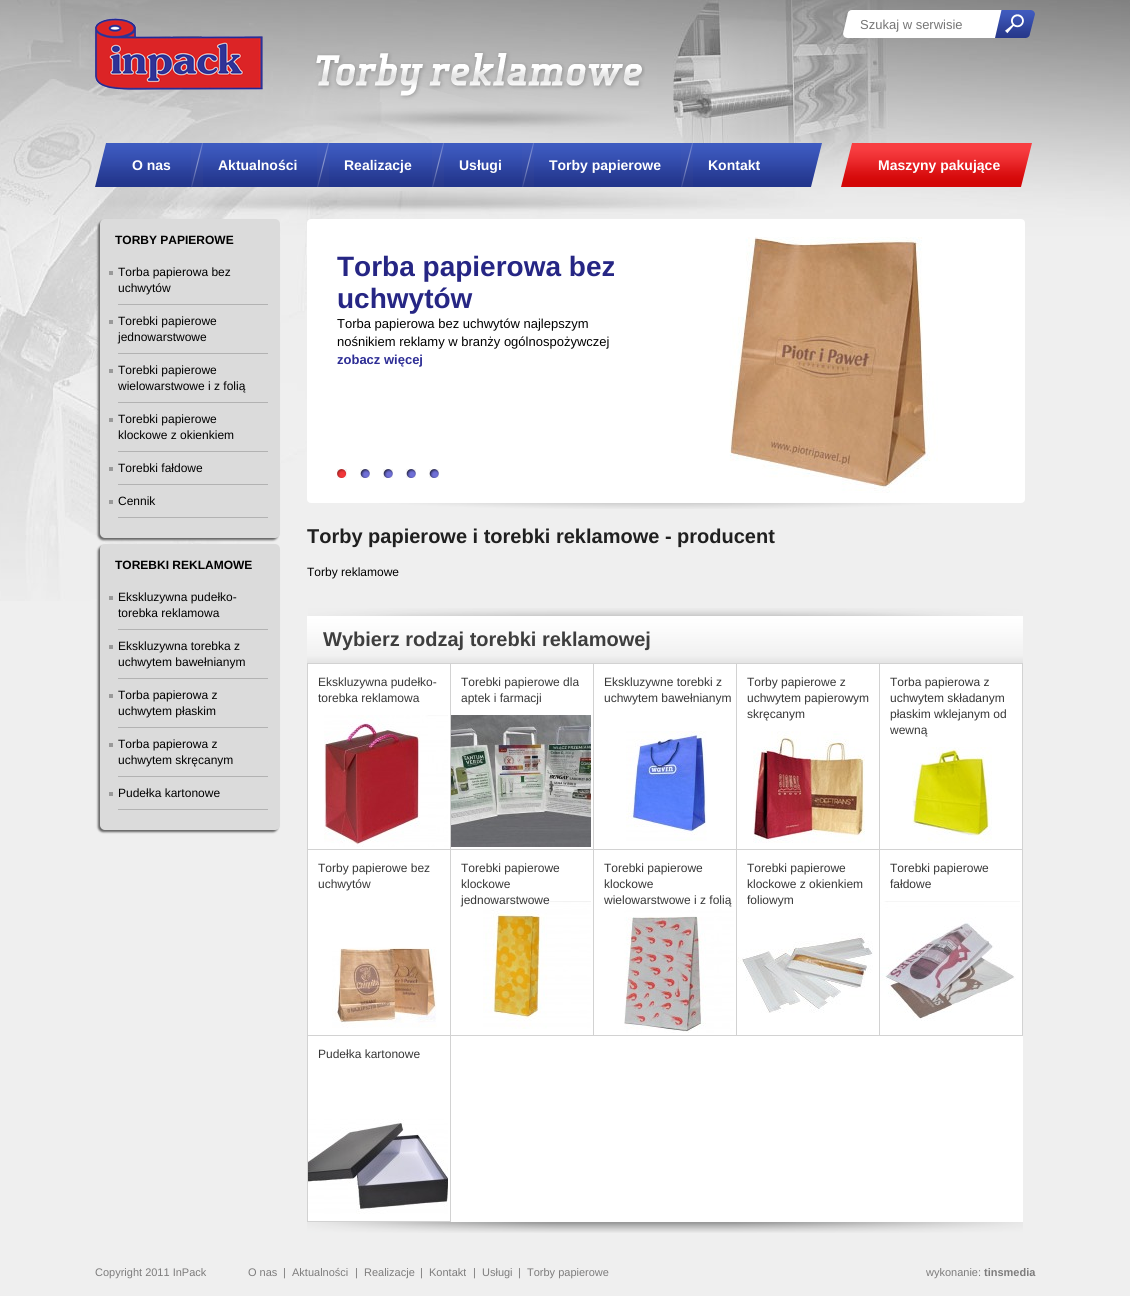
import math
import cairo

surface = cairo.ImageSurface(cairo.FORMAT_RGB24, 1130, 1296)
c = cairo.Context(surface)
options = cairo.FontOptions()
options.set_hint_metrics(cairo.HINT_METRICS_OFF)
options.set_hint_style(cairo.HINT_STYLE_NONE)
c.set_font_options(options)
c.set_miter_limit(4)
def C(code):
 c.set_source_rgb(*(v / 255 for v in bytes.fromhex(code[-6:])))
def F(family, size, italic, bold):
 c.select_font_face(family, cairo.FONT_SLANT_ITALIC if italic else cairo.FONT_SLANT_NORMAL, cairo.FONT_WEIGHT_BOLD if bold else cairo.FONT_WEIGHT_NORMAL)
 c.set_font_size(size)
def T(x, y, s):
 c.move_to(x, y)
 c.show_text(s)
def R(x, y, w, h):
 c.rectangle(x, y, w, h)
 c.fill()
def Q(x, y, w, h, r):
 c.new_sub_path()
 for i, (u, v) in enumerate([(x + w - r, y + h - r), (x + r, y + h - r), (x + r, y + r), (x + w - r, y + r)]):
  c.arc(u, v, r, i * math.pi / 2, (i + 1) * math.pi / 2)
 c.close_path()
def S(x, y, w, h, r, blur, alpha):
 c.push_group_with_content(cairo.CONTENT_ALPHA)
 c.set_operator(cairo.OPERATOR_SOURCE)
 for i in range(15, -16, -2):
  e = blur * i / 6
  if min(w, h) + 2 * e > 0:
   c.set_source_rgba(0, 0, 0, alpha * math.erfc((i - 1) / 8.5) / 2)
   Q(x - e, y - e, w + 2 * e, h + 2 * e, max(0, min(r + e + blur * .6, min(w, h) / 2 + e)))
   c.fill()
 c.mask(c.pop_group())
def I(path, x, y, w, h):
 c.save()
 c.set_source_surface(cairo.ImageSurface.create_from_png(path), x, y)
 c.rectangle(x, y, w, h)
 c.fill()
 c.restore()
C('efefef')
c.paint()
I('1.png',0,0,1130,601)
I('2.png',95,10,937,177)
I('3.png',95,18,168,72)
F('Liberation Sans',13,0,0)
C('757575')
T(860,29,'Szukaj w serwisie')
I('4.png',995,10,40,28)
I('5.png',315,51,330,51)
F('Liberation Sans',14,0,1)
C('ffffff')
T(132,170,'O nas')
I('6.png',191,143,12,44)
T(218,170,'Aktualności')
I('6.png',317,143,12,44)
T(344,170,'Realizacje')
I('6.png',432,143,12,44)
T(459,170,'Usługi')
I('6.png',522,143,12,44)
T(549,170,'Torby papierowe')
I('6.png',681,143,12,44)
T(708,170,'Kontakt')
T(878,170,'Maszyny pakujące')
C('666666')
S(98,221,180,319,5,1,1)
C('dbdbdb')
Q(100,219,180,319,5)
c.fill()
F('Liberation Sans',12,0,1)
C('000000')
T(115,244,'TORBY PAPIEROWE')
C('999999')
R(109,271,4,4)
C('b2b2b2')
R(118,304,150,1)
F('Liberation Sans',12,0,0)
C('000000')
T(118,276,'Torba papierowa bez')
T(118,292,'uchwytów')
C('999999')
R(109,320,4,4)
C('b2b2b2')
R(118,353,150,1)
C('000000')
T(118,325,'Torebki papierowe')
T(118,341,'jednowarstwowe')
C('999999')
R(109,369,4,4)
C('b2b2b2')
R(118,402,150,1)
C('000000')
T(118,374,'Torebki papierowe')
T(118,390,'wielowarstwowe i z folią')
C('999999')
R(109,418,4,4)
C('b2b2b2')
R(118,451,150,1)
C('000000')
T(118,423,'Torebki papierowe')
T(118,439,'klockowe z okienkiem')
C('999999')
R(109,467,4,4)
C('b2b2b2')
R(118,484,150,1)
C('000000')
T(118,472,'Torebki fałdowe')
C('999999')
R(109,500,4,4)
C('b2b2b2')
R(118,517,150,1)
C('000000')
T(118,505,'Cennik')
C('666666')
S(98,546,180,286,5,1,1)
C('dbdbdb')
Q(100,544,180,286,5)
c.fill()
F('Liberation Sans',12,0,1)
C('000000')
T(115,569,'TOREBKI REKLAMOWE')
C('999999')
R(109,596,4,4)
C('b2b2b2')
R(118,629,150,1)
F('Liberation Sans',12,0,0)
C('000000')
T(118,601,'Ekskluzywna pudełko-')
T(118,617,'torebka reklamowa')
C('999999')
R(109,645,4,4)
C('b2b2b2')
R(118,678,150,1)
C('000000')
T(118,650,'Ekskluzywna torebka z')
T(118,666,'uchwytem bawełnianym')
C('999999')
R(109,694,4,4)
C('b2b2b2')
R(118,727,150,1)
C('000000')
T(118,699,'Torba papierowa z')
T(118,715,'uchwytem płaskim')
C('999999')
R(109,743,4,4)
C('b2b2b2')
R(118,776,150,1)
C('000000')
T(118,748,'Torba papierowa z')
T(118,764,'uchwytem skręcanym')
C('999999')
R(109,792,4,4)
C('b2b2b2')
R(118,809,150,1)
C('000000')
T(118,797,'Pudełka kartonowe')
I('7.png',307,219,718,290)
F('Liberation Sans',28,0,1)
C('262684')
T(337,276,'Torba papierowa bez')
T(337,308,'uchwytów')
F('Liberation Sans',13,0,0)
C('000000')
T(337,328,'Torba papierowa bez uchwytów najlepszym')
T(337,346,'nośnikiem reklamy w branży ogólnospożywczej')
F('Liberation Sans',13,0,1)
C('2d2d95')
T(337,364,'zobacz więcej')
I('8.png',709,237,229,256)
I('9.png',337,469,10,9)
I('10.png',360,469,10,9)
I('10.png',383,469,10,9)
I('10.png',406,469,10,9)
I('10.png',429,469,10,9)
F('Liberation Sans',20,0,1)
C('202020')
T(307,543,'Torby papierowe i torebki reklamowe - producent')
F('Liberation Sans',12,0,0)
C('000000')
T(307,576,'Torby reklamowe')
I('11.png',307,1222,716,11)
I('12.png',307,608,716,55)
F('Liberation Sans',20,0,1)
C('3e3e3e')
T(323,646,'Wybierz rodzaj torebki reklamowej')
C('ffffff')
R(308,664,715,558)
C('d2d2d2')
R(307,663,716,1)
R(307,663,1,559)
R(450,664,1,558)
R(308,849,143,1)
F('Liberation Sans',12,0,0)
C('373737')
T(318,686,'Ekskluzywna pudełko-')
T(318,702,'torebka reklamowa')
I('13.png',324,715,124,132)
C('d2d2d2')
R(593,664,1,372)
R(451,849,143,1)
C('373737')
T(461,686,'Torebki papierowe dla')
T(461,702,'aptek i farmacji')
I('14.png',451,715,140,132)
C('d2d2d2')
R(736,664,1,372)
R(594,849,143,1)
C('373737')
T(604,686,'Ekskluzywne torebki z')
T(604,702,'uchwytem bawełnianym')
I('15.png',626,731,81,110)
C('d2d2d2')
R(879,664,1,372)
R(737,849,143,1)
C('373737')
T(747,686,'Torby papierowe z')
T(747,702,'uchwytem papierowym')
T(747,718,'skręcanym')
I('16.png',753,731,112,112)
C('d2d2d2')
R(1022,664,1,372)
R(880,849,143,1)
C('373737')
T(890,686,'Torba papierowa z')
T(890,702,'uchwytem składanym')
T(890,718,'płaskim wklejanym od')
T(890,734,'wewną')
I('17.png',912,747,80,96)
C('d2d2d2')
R(308,1035,715,1)
C('373737')
T(318,872,'Torby papierowe bez')
T(318,888,'uchwytów')
I('18.png',332,947,105,81)
T(461,872,'Torebki papierowe')
T(461,888,'klockowe')
I('19.png',483,901,108,128)
T(461,904,'jednowarstwowe')
T(604,872,'Torebki papierowe')
T(604,888,'klockowe')
I('20.png',624,901,110,132)
T(604,904,'wielowarstwowe i z folią')
T(747,872,'Torebki papierowe')
T(747,888,'klockowe z okienkiem')
T(747,904,'foliowym')
I('21.png',737,933,136,80)
T(890,872,'Torebki papierowe')
T(890,888,'fałdowe')
I('22.png',880,901,140,120)
C('d2d2d2')
R(308,1221,143,1)
C('373737')
T(318,1058,'Pudełka kartonowe')
I('23.png',308,1119,140,95)
F('Liberation Sans',11,0,0)
C('7d7c7c')
T(95,1276,'Copyright 2011 InPack')
T(248,1276,'O nas')
T(283,1276,'|')
T(292,1276,'Aktualności')
T(355,1276,'|')
T(364,1276,'Realizacje')
T(420,1276,'|')
T(429,1276,'Kontakt')
T(473,1276,'|')
T(482,1276,'Usługi')
T(518,1276,'|')
T(527,1276,'Torby papierowe')
T(926,1276,'wykonanie:')
F('Liberation Sans',11,0,1)
T(984,1276,'tinsmedia')
surface.write_to_png('o.png')
